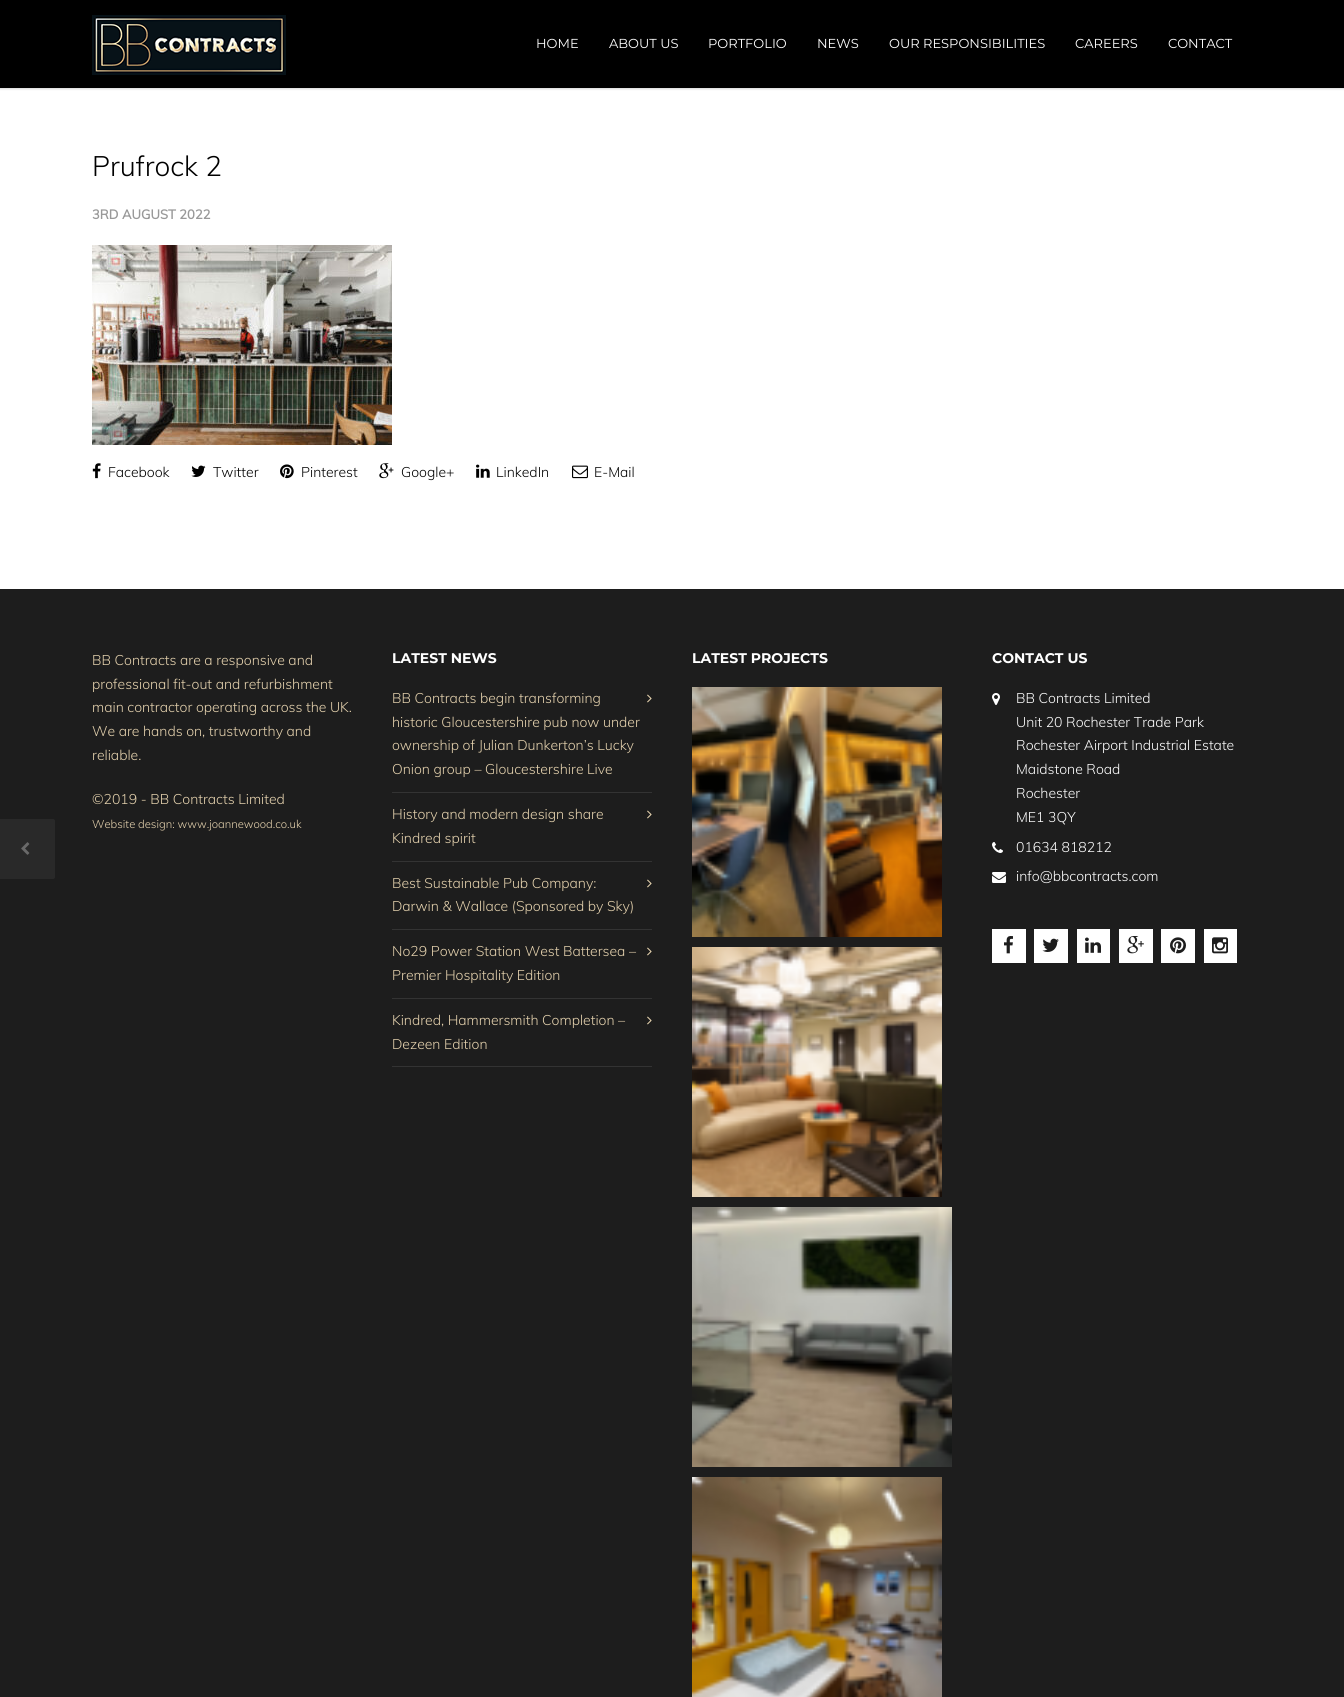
import math
import cairo

surface = cairo.ImageSurface(cairo.FORMAT_RGB24, 1344, 1697)
c = cairo.Context(surface)
options = cairo.FontOptions()
options.set_hint_metrics(cairo.HINT_METRICS_OFF)
options.set_hint_style(cairo.HINT_STYLE_NONE)
c.set_font_options(options)
c.set_miter_limit(4)
def C(code):
 c.set_source_rgb(*(v / 255 for v in bytes.fromhex(code[-6:])))
def F(family, size, italic, bold):
 c.select_font_face(family, cairo.FONT_SLANT_ITALIC if italic else cairo.FONT_SLANT_NORMAL, cairo.FONT_WEIGHT_BOLD if bold else cairo.FONT_WEIGHT_NORMAL)
 c.set_font_size(size)
def T(x, y, s):
 c.move_to(x, y)
 c.show_text(s)
def R(x, y, w, h):
 c.rectangle(x, y, w, h)
 c.fill()
def Q(x, y, w, h, r):
 c.new_sub_path()
 for i, (u, v) in enumerate([(x + w - r, y + h - r), (x + r, y + h - r), (x + r, y + r), (x + w - r, y + r)]):
  c.arc(u, v, r, i * math.pi / 2, (i + 1) * math.pi / 2)
 c.close_path()
def S(x, y, w, h, r, blur, alpha):
 c.push_group_with_content(cairo.CONTENT_ALPHA)
 c.set_operator(cairo.OPERATOR_SOURCE)
 for i in range(15, -16, -2):
  e = blur * i / 6
  if min(w, h) + 2 * e > 0:
   c.set_source_rgba(0, 0, 0, alpha * math.erfc((i - 1) / 8.5) / 2)
   Q(x - e, y - e, w + 2 * e, h + 2 * e, max(0, min(r + e + blur * .6, min(w, h) / 2 + e)))
   c.fill()
 c.mask(c.pop_group())
def I(path, x, y, w, h):
 c.save()
 c.set_source_surface(cairo.ImageSurface.create_from_png(path), x, y)
 c.rectangle(x, y, w, h)
 c.fill()
 c.restore()
C('ffffff')
c.paint()
C('000000')
S(-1,-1,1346,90,0,1,.16)
C('000000')
R(0,0,1344,88)
I('1.png',92,15,194,60)
F('Montserrat',13,0,0)
C('ffffff')
T(536,48,'HOME')
T(609,48,'ABOUT US')
T(708,48,'PORTFOLIO')
T(817,48,'NEWS')
T(889,48,'OUR RESPONSIBILITIES')
T(1075,48,'CAREERS')
T(1168,48,'CONTACT')
F('Muli Light',28,0,0)
C('000000')
T(92,176,'Prufrock 2')
F('Muli',13,0,1)
C('999999')
T(92,219,'3RD AUGUST 2022')
I('2.png',92,245,300,200)
I('3.png',92,463,9,16)
F('Muli Light',14,0,0)
C('000000')
T(108,477,'Facebook')
I('4.png',191,465,15,12)
T(213,477,'Twitter')
I('5.png',280,464,14,15)
T(301,477,'Pinterest')
I('6.png',379,463,15,16)
T(401,477,'Google+')
I('7.png',476,464,14,14)
T(496,477,'LinkedIn')
I('8.png',572,465,16,14)
T(594,477,'E-Mail')
C('1d1d1d')
R(0,589,1344,1108)
C('292929')
c.new_path()
c.move_to(-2,819)
c.line_to(53,819)
c.curve_to(54,819,55,820,55,821)
c.line_to(55,877)
c.curve_to(55,878,54,879,53,879)
c.line_to(-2,879)
c.close_path()
c.fill()
I('9.png',21,842,9,13)
C('e5d2ae')
T(92,665,'BB Contracts are a responsive and')
T(92,689,'professional fit-out and refurbishment')
T(92,712,'main contractor operating across the UK.')
T(92,736,'We are hands on, trustworthy and')
T(92,760,'reliable.')
T(92,804,'©2019 - BB Contracts Limited')
F('Muli Light',11.25,0,0)
T(92,828,'Website design: www.joannewood.co.uk')
F('Montserrat',14,0,1)
C('ffffff')
T(392,663,'LATEST NEWS')
C('333333')
R(392,792,260,1)
F('Muli Light',14,0,0)
C('e5d2ae')
T(392,703,'BB Contracts begin transforming')
T(392,727,'historic Gloucestershire pub now under')
T(392,750,'ownership of Julian Dunkerton’s Lucky')
T(392,774,'Onion group – Gloucestershire Live')
I('10.png',647,694,5,9)
C('333333')
R(392,861,260,1)
C('e5d2ae')
T(392,819,'History and modern design share')
T(392,843,'Kindred spirit')
I('10.png',647,810,5,9)
C('333333')
R(392,929,260,1)
C('e5d2ae')
T(392,888,'Best Sustainable Pub Company:')
T(392,911,'Darwin & Wallace (Sponsored by Sky)')
I('10.png',647,879,5,9)
C('333333')
R(392,998,260,1)
C('e5d2ae')
T(392,956,'No29 Power Station West Battersea –')
T(392,980,'Premier Hospitality Edition')
I('10.png',647,947,5,9)
C('333333')
R(392,1066,260,1)
C('e5d2ae')
T(392,1025,'Kindred, Hammersmith Completion –')
T(392,1049,'Dezeen Edition')
I('10.png',647,1016,5,9)
F('Montserrat',14,0,1)
C('ffffff')
T(692,663,'LATEST PROJECTS')
I('11.png',692,687,250,250)
I('12.png',692,947,250,250)
I('13.png',692,1207,260,260)
I('14.png',692,1477,250,220)
T(992,663,'CONTACT US')
I('15.png',992,693,8,12)
F('Muli Light',14,0,0)
T(1016,703,'BB Contracts Limited')
T(1016,727,'Unit 20 Rochester Trade Park')
T(1016,750,'Rochester Airport Industrial Estate')
T(1016,774,'Maidstone Road')
T(1016,798,'Rochester')
T(1016,822,'ME1 3QY')
I('16.png',992,842,11,11)
T(1016,852,'01634 818212')
I('17.png',992,872,14,11)
T(1016,881,'info@bbcontracts.com')
R(992,929,34,34)
I('18.png',1004,936,9,18)
R(1034,929,34,34)
I('19.png',1042,938,17,14)
R(1077,929,33,34)
I('20.png',1085,937,16,16)
R(1119,929,34,34)
I('21.png',1127,936,17,18)
R(1161,929,34,34)
I('22.png',1170,937,16,17)
R(1204,929,33,34)
I('23.png',1212,937,16,17)
surface.write_to_png('o.png')
